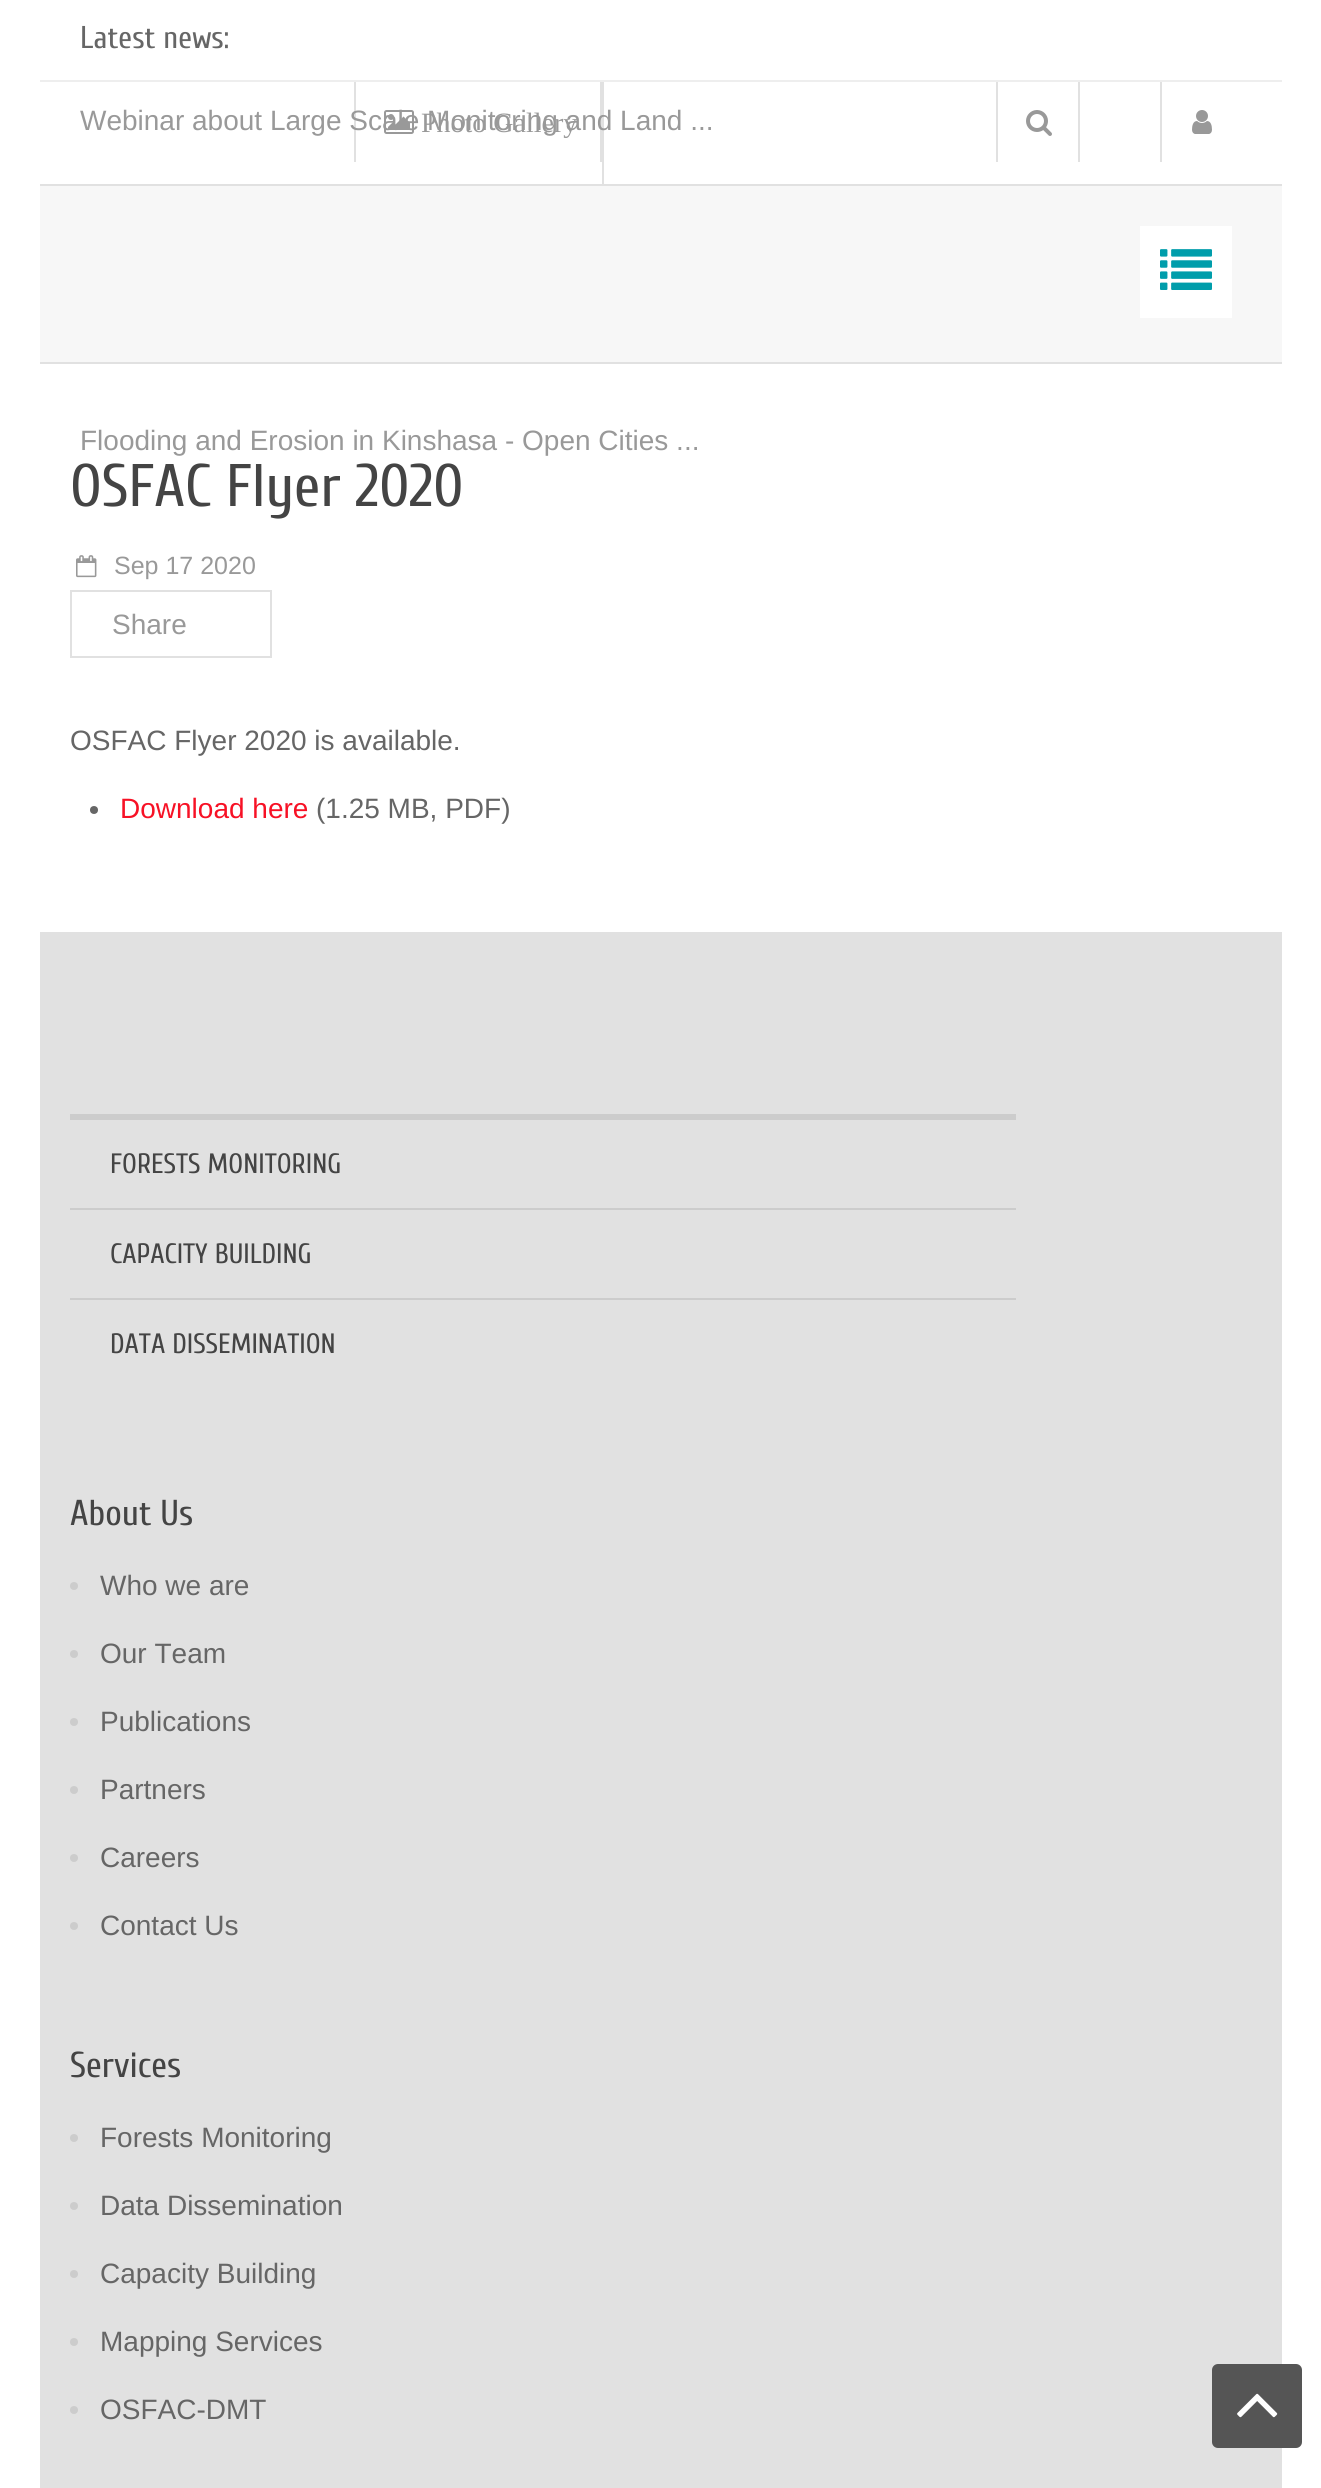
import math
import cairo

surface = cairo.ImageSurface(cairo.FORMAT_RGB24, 1321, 2488)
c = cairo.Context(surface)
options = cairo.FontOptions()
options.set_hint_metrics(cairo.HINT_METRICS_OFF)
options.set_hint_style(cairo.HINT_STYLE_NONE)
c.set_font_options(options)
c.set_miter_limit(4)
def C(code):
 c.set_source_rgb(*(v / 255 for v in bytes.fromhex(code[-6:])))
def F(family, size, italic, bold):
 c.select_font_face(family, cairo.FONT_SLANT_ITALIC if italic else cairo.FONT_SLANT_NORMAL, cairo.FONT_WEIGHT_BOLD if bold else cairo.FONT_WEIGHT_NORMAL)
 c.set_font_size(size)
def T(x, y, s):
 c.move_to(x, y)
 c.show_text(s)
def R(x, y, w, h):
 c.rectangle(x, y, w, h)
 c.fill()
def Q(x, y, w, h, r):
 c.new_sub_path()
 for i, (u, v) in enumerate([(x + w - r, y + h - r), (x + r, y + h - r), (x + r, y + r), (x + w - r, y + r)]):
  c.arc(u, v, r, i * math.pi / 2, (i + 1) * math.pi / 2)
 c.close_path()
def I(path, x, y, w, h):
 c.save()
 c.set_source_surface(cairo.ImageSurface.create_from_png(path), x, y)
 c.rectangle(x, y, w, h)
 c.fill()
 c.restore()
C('ffffff')
c.paint()
F('Cuprum',31.5,0,0)
C('666666')
T(80,48,'Latest news:')
C('e1e1e1')
R(600,82,2,80)
R(354,82,2,80)
I('1.png',384,110,30,24)
F('Liberation Serif',28,0,0)
C('999999')
T(421,132,'Photo Gallery')
C('e1e1e1')
R(602,82,2,102)
F('Liberation Sans',28,0,0)
C('999999')
T(80,130,'Webinar about Large Scale Monitoring and Land ...')
T(80,450,'Flooding and Erosion in Kinshasa - Open Cities ...')
C('eeeeee')
R(40,80,1242,2)
C('e1e1e1')
R(996,82,2,80)
I('2.png',1026,110,26,26)
R(1078,82,2,80)
R(1160,82,2,80)
I('3.png',1192,110,20,24)
C('f7f7f7')
R(40,186,1242,176)
C('e1e1e1')
R(40,184,1242,2)
R(40,362,1242,2)
C('ffffff')
R(1140,226,92,92)
I('4.png',1160,249,52,41)
F('Cuprum',60,0,0)
C('444444')
T(70,506,'OSFAC Flyer 2020')
I('5.png',76,555,21,23)
F('Liberation Sans',25,0,0)
C('999999')
T(114,574,'Sep 17 2020')
c.rectangle(71,591,200,66)
C('e1e1e1')
c.stroke()
F('Liberation Sans',28,0,0)
C('999999')
T(112,634,'Share')
C('666666')
T(70,750,'OSFAC Flyer 2020 is available.')
c.new_path()
c.arc(94,810,4,0,2 * math.pi)
c.fill()
C('f71125')
T(120,818,'Download here')
C('666666')
T(316,818,'(1.25 MB, PDF)')
C('e1e1e1')
R(40,932,1242,1556)
C('cccccc')
R(70,1114,946,6)
F('Cuprum',28,0,0)
C('444444')
T(110,1173,'FORESTS MONITORING')
C('cccccc')
R(70,1208,946,2)
C('444444')
T(110,1263,'CAPACITY BUILDING')
C('cccccc')
R(70,1298,946,2)
C('444444')
T(110,1353,'DATA DISSEMINATION')
F('Cuprum',36,0,0)
T(70,1525,'About Us')
C('cccccc')
c.new_path()
c.arc(74,1586,4,0,2 * math.pi)
c.fill()
F('Liberation Sans',28,0,0)
C('666666')
T(100,1595,'Who we are')
C('cccccc')
c.new_path()
c.arc(74,1654,4,0,2 * math.pi)
c.fill()
C('666666')
T(100,1663,'Our Team')
C('cccccc')
c.new_path()
c.arc(74,1722,4,0,2 * math.pi)
c.fill()
C('666666')
T(100,1731,'Publications')
C('cccccc')
c.new_path()
c.arc(74,1790,4,0,2 * math.pi)
c.fill()
C('666666')
T(100,1799,'Partners')
C('cccccc')
c.new_path()
c.arc(74,1858,4,0,2 * math.pi)
c.fill()
C('666666')
T(100,1867,'Careers')
C('cccccc')
c.new_path()
c.arc(74,1926,4,0,2 * math.pi)
c.fill()
C('666666')
T(100,1935,'Contact Us')
F('Cuprum',36,0,0)
C('444444')
T(70,2077,'Services')
C('cccccc')
c.new_path()
c.arc(74,2138,4,0,2 * math.pi)
c.fill()
F('Liberation Sans',28,0,0)
C('666666')
T(100,2147,'Forests Monitoring')
C('cccccc')
c.new_path()
c.arc(74,2206,4,0,2 * math.pi)
c.fill()
C('666666')
T(100,2215,'Data Dissemination')
C('cccccc')
c.new_path()
c.arc(74,2274,4,0,2 * math.pi)
c.fill()
C('666666')
T(100,2283,'Capacity Building')
C('cccccc')
c.new_path()
c.arc(74,2342,4,0,2 * math.pi)
c.fill()
C('666666')
T(100,2351,'Mapping Services')
C('cccccc')
c.new_path()
c.arc(74,2410,4,0,2 * math.pi)
c.fill()
C('666666')
T(100,2419,'OSFAC-DMT')
C('555555')
Q(1212,2364,90,84,6)
c.fill()
I('6.png',1237,2393,41,25)
surface.write_to_png('o.png')
